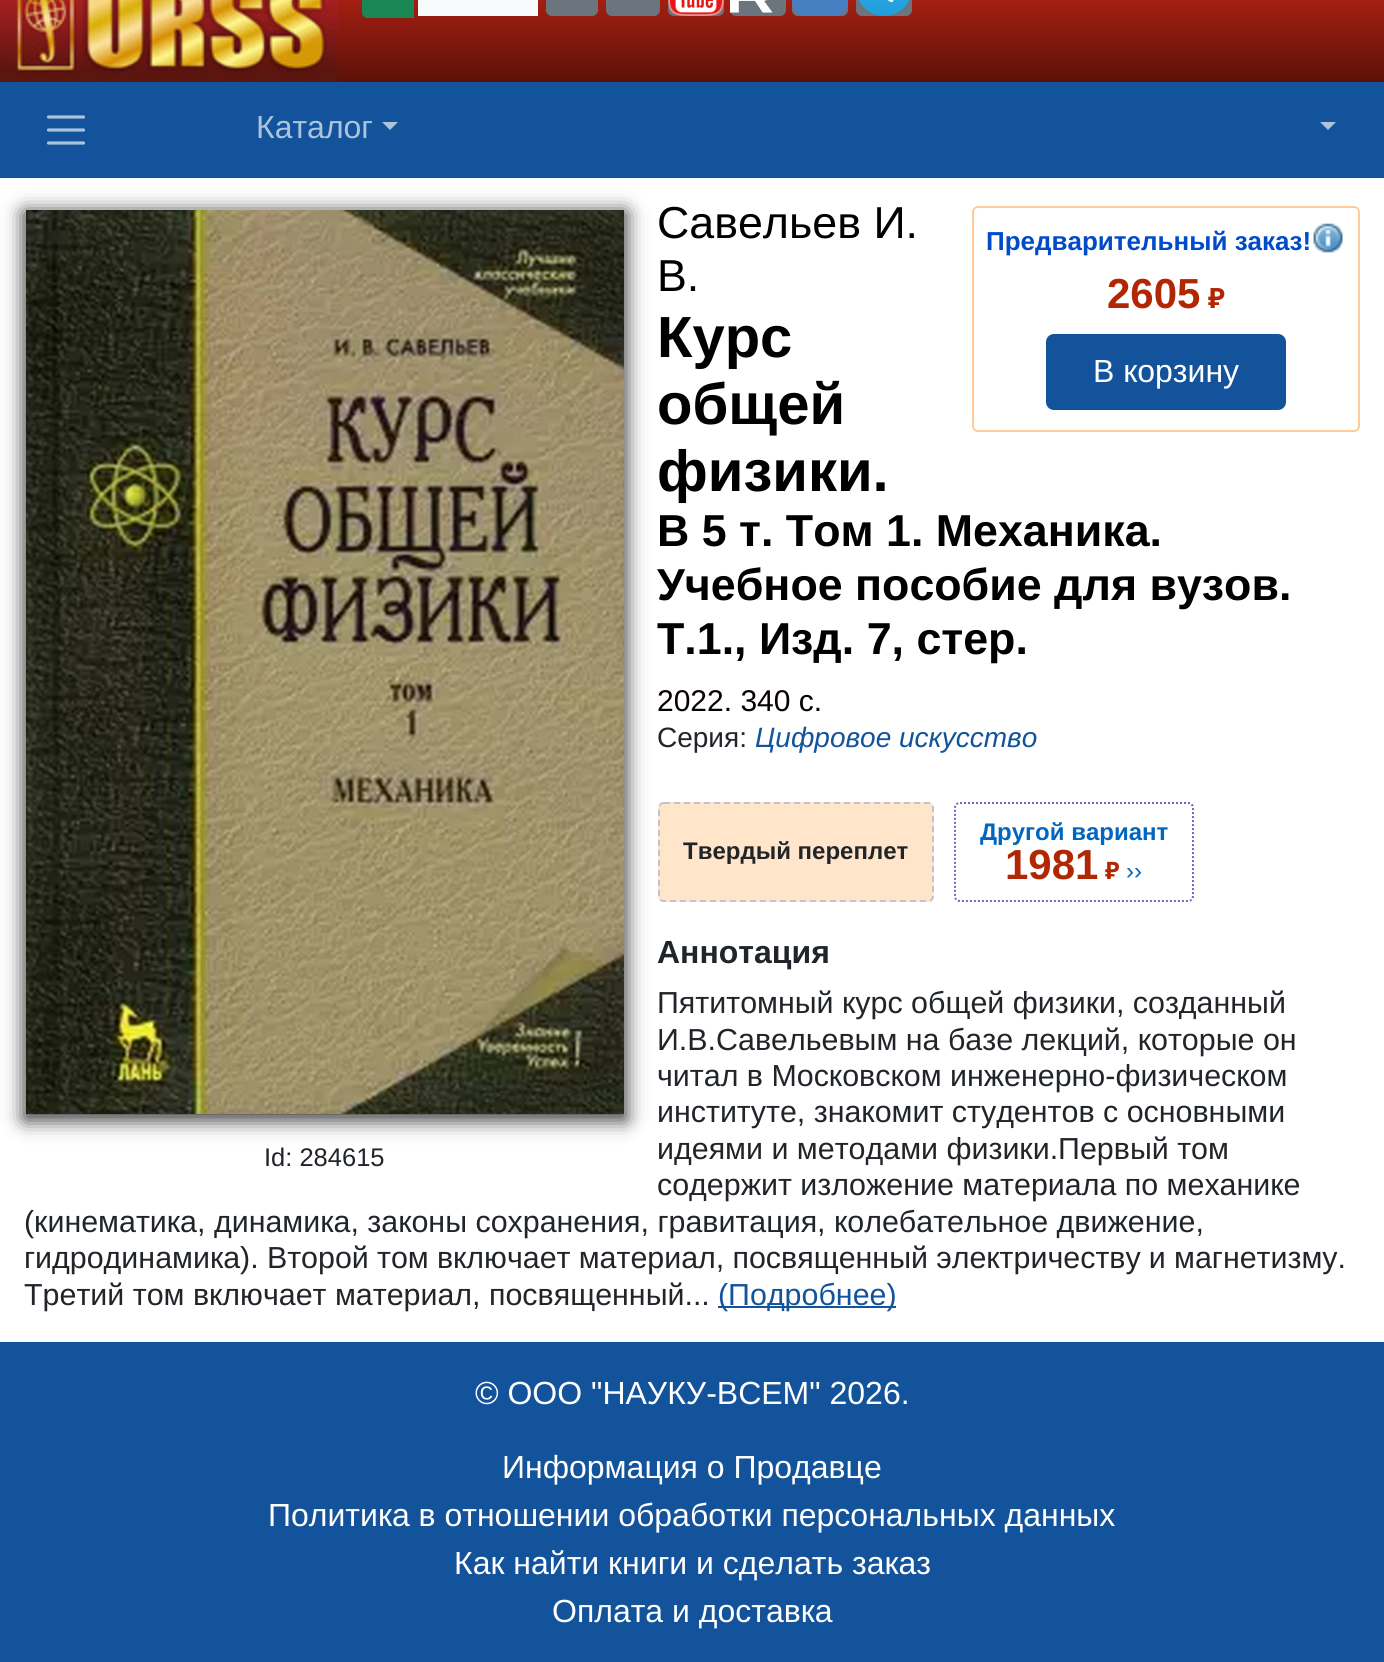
import math
import cairo

surface = cairo.ImageSurface(cairo.FORMAT_RGB24, 1384, 1662)
c = cairo.Context(surface)
options = cairo.FontOptions()
options.set_hint_metrics(cairo.HINT_METRICS_OFF)
options.set_hint_style(cairo.HINT_STYLE_NONE)
c.set_font_options(options)
c.set_miter_limit(4)
def C(code):
 c.set_source_rgb(*(v / 255 for v in bytes.fromhex(code[-6:])))
def F(family, size, italic, bold):
 c.select_font_face(family, cairo.FONT_SLANT_ITALIC if italic else cairo.FONT_SLANT_NORMAL, cairo.FONT_WEIGHT_BOLD if bold else cairo.FONT_WEIGHT_NORMAL)
 c.set_font_size(size)
def T(x, y, s):
 c.move_to(x, y)
 c.show_text(s)
def L(x, y, s, letter, word):
 c.move_to(x, y)
 for ch in s:
  c.show_text(ch)
  c.rel_move_to(letter + word * (ch == ' '), 0)
def R(x, y, w, h):
 c.rectangle(x, y, w, h)
 c.fill()
def Q(x, y, w, h, r):
 c.new_sub_path()
 for i, (u, v) in enumerate([(x + w - r, y + h - r), (x + r, y + h - r), (x + r, y + r), (x + w - r, y + r)]):
  c.arc(u, v, r, i * math.pi / 2, (i + 1) * math.pi / 2)
 c.close_path()
def S(x, y, w, h, r, blur, alpha):
 c.push_group_with_content(cairo.CONTENT_ALPHA)
 c.set_operator(cairo.OPERATOR_SOURCE)
 for i in range(15, -16, -2):
  e = blur * i / 6
  if min(w, h) + 2 * e > 0:
   c.set_source_rgba(0, 0, 0, alpha * math.erfc((i - 1) / 8.5) / 2)
   Q(x - e, y - e, w + 2 * e, h + 2 * e, max(0, min(r + e + blur * .6, min(w, h) / 2 + e)))
   c.fill()
 c.mask(c.pop_group())
def I(path, x, y, w, h):
 c.save()
 c.set_source_surface(cairo.ImageSurface.create_from_png(path), x, y)
 c.rectangle(x, y, w, h)
 c.fill()
 c.restore()
C('ffffff')
c.paint()
I('1.png',0,0,338,82)
gradient = cairo.LinearGradient(861,-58,861,82)
gradient.add_color_stop_rgba(0,0.847,0.157,0.094,1)
gradient.add_color_stop_rgba(1,0.357,0.067,0.031,1)
c.set_source(gradient)
R(338,0,1046,82)
C('198754')
c.new_path()
c.move_to(368,-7)
c.line_to(413,-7)
c.line_to(413,17)
c.line_to(368,17)
c.curve_to(365,17,363,15,363,12)
c.line_to(363,-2)
c.curve_to(363,-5,365,-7,368,-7)
c.close_path()
c.fill_preserve()
c.stroke()
C('f8f9fa')
R(418,0,120,16)
C('6c757d')
Q(546,-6,52,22,6)
c.fill()
Q(606,-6,54,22,6)
c.fill()
Q(668,-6,56,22,6)
c.fill()
I('2.png',668,0,56,16)
Q(730,-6,56,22,6)
c.fill()
I('3.png',730,0,43,13)
Q(792,-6,56,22,6)
c.fill()
I('4.png',792,0,56,16)
Q(856,-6,56,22,6)
c.fill()
I('5.png',858,0,52,16)
C('13539b')
R(0,82,1384,96)
c.new_path()
c.move_to(48.5,117)
c.line_to(83.5,117)
c.move_to(48.5,130)
c.line_to(83.5,130)
c.move_to(48.5,143)
c.line_to(83.5,143)
C('acc3dc')
c.set_line_width(3.2)
c.set_line_cap(cairo.LINE_CAP_ROUND)
c.stroke()
F('Liberation Sans',32,0,0)
T(256,138,'Каталог')
c.new_path()
c.move_to(382,122)
c.line_to(398,122)
c.line_to(390,130)
c.close_path()
c.fill()
c.new_path()
c.move_to(1320,122)
c.line_to(1336,122)
c.line_to(1328,130)
c.close_path()
c.fill()
F('Liberation Sans',44.75,0,0)
C('000000')
T(657,238,'Савельев И.')
T(657,291,'В.')
F('Liberation Sans',58,0,1)
T(657,357,'Курс')
T(657,424,'общей')
T(657,491,'физики.')
F('Liberation Sans',44.75,0,1)
T(657,546,'В 5 т. Том 1. Механика.')
T(657,600,'Учебное пособие для вузов.')
T(657,654,'Т.1., Изд. 7, стер.')
Q(973,207,386,224,5)
C('ffcc99')
c.set_line_width(2)
c.set_line_cap(cairo.LINE_CAP_BUTT)
c.stroke()
F('Liberation Sans',26,0,1)
C('004bca')
T(986,250,'Предварительный заказ!')
I('6.png',1313,223,30,30)
F('Liberation Sans',42,0,1)
C('b12704')
T(1107,308,'2605')
F('Noto Sans',28,0,1)
T(1208,308,'₽')
C('13539b')
Q(1047,335,238,74,7)
c.fill_preserve()
c.stroke()
F('Liberation Sans',32,0,0)
C('ffffff')
T(1093,382,'В корзину')
F('Liberation Sans',30,0,0)
C('080000')
T(657,711,'2022. 340 с.')
F('Liberation Sans',28,0,0)
C('212529')
T(657,747,'Серия:')
F('Liberation Sans',28,1,0)
C('13539b')
T(755,747,'Цифровое искусство')
C('ffe5ca')
Q(658,802,276,100,6)
c.fill()
c.new_path()
c.move_to(664,803)
c.line_to(928,803)
c.curve_to(931,803,933,805,933,808)
c.line_to(933,896)
c.curve_to(933,899,931,901,928,901)
c.line_to(664,901)
c.curve_to(661,901,659,899,659,896)
c.line_to(659,808)
c.curve_to(659,805,661,803,664,803)
c.close_path()
C('c4c1cf')
c.set_dash([6,4])
c.stroke()
F('Liberation Sans',24,0,1)
C('212529')
T(683,859,'Твердый переплет')
c.new_path()
c.move_to(960,803)
c.line_to(1188,803)
c.curve_to(1191,803,1193,805,1193,808)
c.line_to(1193,896)
c.curve_to(1193,899,1191,901,1188,901)
c.line_to(960,901)
c.curve_to(957,901,955,899,955,896)
c.line_to(955,808)
c.curve_to(955,805,957,803,960,803)
c.close_path()
C('6666cc')
c.set_dash([2,2])
c.stroke()
C('0066c0')
T(980,840,'Другой вариант')
F('Liberation Sans',42,0,1)
C('b12704')
T(1005,879,'1981')
F('Noto Sans',24,0,1)
T(1105,879,'₽')
F('Liberation Sans',24,0,0)
C('0066c0')
T(1126,879,'››')
C('000000')
S(24,212,602,908,0,10,.8)
I('7.png',26,210,598,904)
F('Liberation Sans',25.5,0,0)
C('212529')
T(264,1166,'Id: 284615')
F('Liberation Sans',32,0,1)
T(657,963,'Аннотация')
F('Liberation Sans',30.4,0,0)
T(657,1013,'Пятитомный курс общей физики, созданный')
T(657,1050,'И.В.Савельевым на базе лекций, которые он')
T(657,1086,'читал в Московском инженерно-физическом')
T(657,1122,'институте, знакомит студентов с основными')
T(657,1159,'идеями и методами физики.Первый том')
T(657,1195,'содержит изложение материала по механике')
T(24,1232,'(кинематика, динамика, законы сохранения, гравитация, колебательное движение,')
L(24,1268,'гидродинамика). Второй том включает материал, посвященный электричеству и магнетизму.',0,-.25)
T(24,1305,'Третий том включает материал, посвященный...')
C('13539b')
R(718,1306,178,2)
T(718,1305,'(Подробнее)')
R(0,1342,1384,320)
F('Liberation Sans',32,0,0)
C('ffffff')
T(475,1404,'© ООО "НАУКУ-ВСЕМ" 2026.')
T(502,1478,'Информация о Продавце')
T(268,1526,'Политика в отношении обработки персональных данных')
T(454,1574,'Как найти книги и сделать заказ')
T(552,1622,'Оплата и доставка')
surface.write_to_png('o.png')
